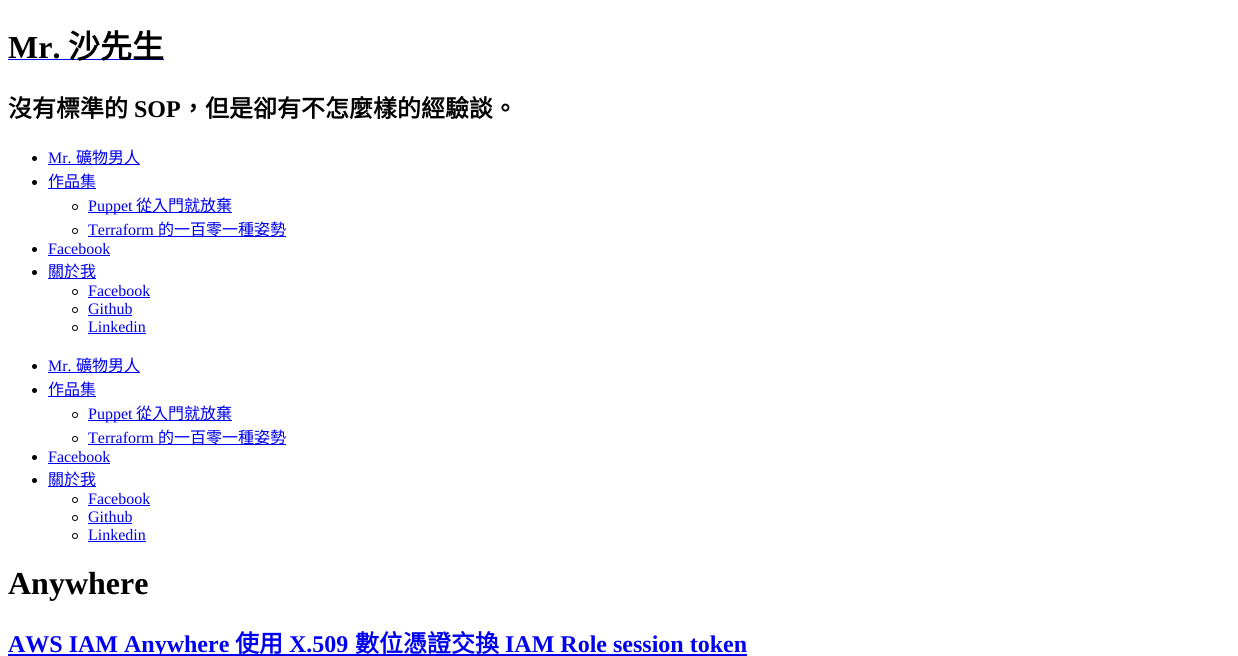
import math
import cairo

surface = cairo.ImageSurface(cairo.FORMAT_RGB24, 1238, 656)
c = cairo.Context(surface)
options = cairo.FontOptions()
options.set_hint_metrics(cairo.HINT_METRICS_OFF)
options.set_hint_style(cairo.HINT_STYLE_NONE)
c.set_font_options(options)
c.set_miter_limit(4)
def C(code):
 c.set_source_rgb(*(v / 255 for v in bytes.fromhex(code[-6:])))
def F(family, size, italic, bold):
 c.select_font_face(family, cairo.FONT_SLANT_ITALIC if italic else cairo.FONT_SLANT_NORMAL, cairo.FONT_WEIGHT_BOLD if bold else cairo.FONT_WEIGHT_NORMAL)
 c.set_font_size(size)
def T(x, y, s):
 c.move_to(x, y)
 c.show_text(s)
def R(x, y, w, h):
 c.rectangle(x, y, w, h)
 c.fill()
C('ffffff')
c.paint()
F('Liberation Serif',32,0,1)
C('000000')
T(8,58,'Mr.')
C('0000ee')
R(8,59,156,1)
F('Noto Sans CJK TC',32,0,1)
C('000000')
T(68,58,'沙先生')
F('Noto Sans CJK TC',24,0,1)
T(8,117,'沒有標準的')
F('Liberation Serif',24,0,1)
T(134,117,'SOP')
F('Noto Sans CJK TC',24,0,1)
T(181,117,'，但是卻有不怎麼樣的經驗談。')
c.new_path()
c.arc(34.5,158.5,2.5,0,2 * math.pi)
c.fill()
F('Liberation Serif',16,0,0)
C('0000ee')
T(48,163,'Mr.')
R(48,164,92,1)
F('Noto Sans CJK TC',16,0,0)
T(76,163,'礦物男人')
C('000000')
c.new_path()
c.arc(34.5,182.5,2.5,0,2 * math.pi)
c.fill()
C('0000ee')
R(48,188,48,1)
T(48,187,'作品集')
c.new_path()
c.arc(75,207,2.5,0,2 * math.pi)
C('000000')
c.set_line_width(1)
c.stroke()
C('0000ee')
R(88,212,144,1)
F('Liberation Serif',16,0,0)
T(88,211,'Puppet')
F('Noto Sans CJK TC',16,0,0)
T(136,211,'從入門就放棄')
c.new_path()
c.arc(75,231,2.5,0,2 * math.pi)
C('000000')
c.stroke()
F('Liberation Serif',16,0,0)
C('0000ee')
T(88,235,'Terraform')
R(88,236,198,1)
F('Noto Sans CJK TC',16,0,0)
T(158,235,'的一百零一種姿勢')
C('000000')
c.new_path()
c.arc(34.5,249.5,2.5,0,2 * math.pi)
c.fill()
F('Liberation Serif',16,0,0)
C('0000ee')
T(48,254,'Facebook')
R(48,255,62,1)
C('000000')
c.new_path()
c.arc(34.5,272.5,2.5,0,2 * math.pi)
c.fill()
C('0000ee')
R(48,278,48,1)
F('Noto Sans CJK TC',16,0,0)
T(48,277,'關於我')
c.new_path()
c.arc(75,292,2.5,0,2 * math.pi)
C('000000')
c.stroke()
F('Liberation Serif',16,0,0)
C('0000ee')
T(88,296,'Facebook')
R(88,297,62,1)
c.new_path()
c.arc(75,310,2.5,0,2 * math.pi)
C('000000')
c.stroke()
C('0000ee')
T(88,314,'Github')
R(88,315,44,1)
c.new_path()
c.arc(75,328,2.5,0,2 * math.pi)
C('000000')
c.stroke()
C('0000ee')
T(88,332,'Linkedin')
R(88,333,58,1)
C('000000')
c.new_path()
c.arc(34.5,366.5,2.5,0,2 * math.pi)
c.fill()
C('0000ee')
T(48,371,'Mr.')
R(48,372,92,1)
F('Noto Sans CJK TC',16,0,0)
T(76,371,'礦物男人')
C('000000')
c.new_path()
c.arc(34.5,390.5,2.5,0,2 * math.pi)
c.fill()
C('0000ee')
R(48,396,48,1)
T(48,395,'作品集')
c.new_path()
c.arc(75,415,2.5,0,2 * math.pi)
C('000000')
c.stroke()
C('0000ee')
R(88,420,144,1)
F('Liberation Serif',16,0,0)
T(88,419,'Puppet')
F('Noto Sans CJK TC',16,0,0)
T(136,419,'從入門就放棄')
c.new_path()
c.arc(75,439,2.5,0,2 * math.pi)
C('000000')
c.stroke()
F('Liberation Serif',16,0,0)
C('0000ee')
T(88,443,'Terraform')
R(88,444,198,1)
F('Noto Sans CJK TC',16,0,0)
T(158,443,'的一百零一種姿勢')
C('000000')
c.new_path()
c.arc(34.5,457.5,2.5,0,2 * math.pi)
c.fill()
F('Liberation Serif',16,0,0)
C('0000ee')
T(48,462,'Facebook')
R(48,463,62,1)
C('000000')
c.new_path()
c.arc(34.5,480.5,2.5,0,2 * math.pi)
c.fill()
C('0000ee')
R(48,486,48,1)
F('Noto Sans CJK TC',16,0,0)
T(48,485,'關於我')
c.new_path()
c.arc(75,500,2.5,0,2 * math.pi)
C('000000')
c.stroke()
F('Liberation Serif',16,0,0)
C('0000ee')
T(88,504,'Facebook')
R(88,505,62,1)
c.new_path()
c.arc(75,518,2.5,0,2 * math.pi)
C('000000')
c.stroke()
C('0000ee')
T(88,522,'Github')
R(88,523,44,1)
c.new_path()
c.arc(75,536,2.5,0,2 * math.pi)
C('000000')
c.stroke()
C('0000ee')
T(88,540,'Linkedin')
R(88,541,58,1)
F('Liberation Serif',32,0,1)
C('000000')
T(8,594,'Anywhere')
C('0000ee')
R(8,654,739,2)
F('Liberation Serif',24,0,1)
T(8,652,'AWS IAM Anywhere')
F('Noto Sans CJK TC',24,0,1)
T(235,652,'使用')
F('Liberation Serif',24,0,1)
T(289,652,'X.509')
F('Noto Sans CJK TC',24,0,1)
T(355,652,'數位憑證交換')
F('Liberation Serif',24,0,1)
T(505,652,'IAM Role session token')
surface.write_to_png('o.png')
